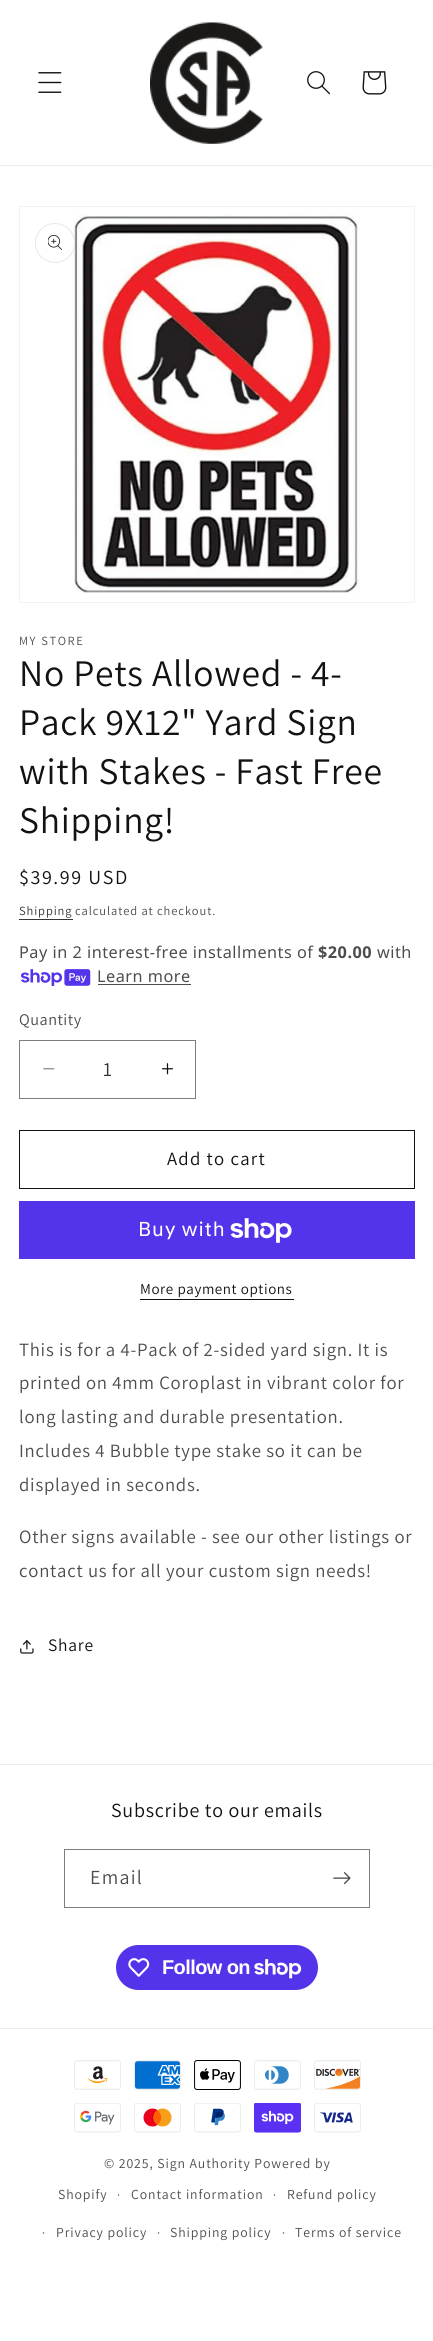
import math
import cairo

surface = cairo.ImageSurface(cairo.FORMAT_RGB24, 433, 2341)
c = cairo.Context(surface)
options = cairo.FontOptions()
options.set_hint_metrics(cairo.HINT_METRICS_OFF)
options.set_hint_style(cairo.HINT_STYLE_NONE)
c.set_font_options(options)
c.set_miter_limit(4)
def C(code):
 c.set_source_rgb(*(v / 255 for v in bytes.fromhex(code[-6:])))
def F(family, size, italic, bold):
 c.select_font_face(family, cairo.FONT_SLANT_ITALIC if italic else cairo.FONT_SLANT_NORMAL, cairo.FONT_WEIGHT_BOLD if bold else cairo.FONT_WEIGHT_NORMAL)
 c.set_font_size(size)
def T(x, y, s):
 c.move_to(x, y)
 c.show_text(s)
def L(x, y, s, letter, word):
 c.move_to(x, y)
 for ch in s:
  c.show_text(ch)
  c.rel_move_to(letter + word * (ch == ' '), 0)
def R(x, y, w, h):
 c.rectangle(x, y, w, h)
 c.fill()
def Q(x, y, w, h, r):
 c.new_sub_path()
 for i, (u, v) in enumerate([(x + w - r, y + h - r), (x + r, y + h - r), (x + r, y + r), (x + w - r, y + r)]):
  c.arc(u, v, r, i * math.pi / 2, (i + 1) * math.pi / 2)
 c.close_path()
def I(path, x, y, w, h):
 c.save()
 c.set_source_surface(cairo.ImageSurface.create_from_png(path), x, y)
 c.rectangle(x, y, w, h)
 c.fill()
 c.restore()
C('ffffff')
c.paint()
C('ececec')
R(0,165,433,1)
I('1.png',38,72,24,21)
I('2.png',150,22,113,122)
I('3.png',307,71,23,24)
I('4.png',362,71,25,24)
c.rectangle(19.5,206.5,395,396)
C('f3f3f3')
c.set_line_width(1)
c.stroke()
I('6.png',74,214,286,380)
C('ffffff')
c.arc(55,243,20,0,2 * math.pi)
c.fill()
c.arc(55,243,19.5,0,2 * math.pi)
c.set_source_rgba(0.071,0.071,0.071,0.1)
c.stroke()
I('5.png',48,235,14,15)
F('Assistant',12.5,0,0)
C('4d4d4d')
L(19,645,'MY STORE',1.6,0)
F('Assistant',37.5,0,0)
C('121212')
L(19,686,'No Pets Allowed - 4-',.75,0)
L(19,735,'Pack 9X12" Yard Sign',.75,0)
L(19,784,'with Stakes - Fast Free',.75,0)
L(19,833,'Shipping!',.75,0)
F('Assistant',20,0,0)
L(19,884,'$39.99 USD',1.6,0)
F('Assistant',12.5,0,0)
C('363636')
L(19,915,'Shipping',.9,0)
R(19,919,54,1)
C('4d4d4d')
L(75,915,'calculated at checkout.',.9,0)
F('Noto Sans',16.25,0,0)
L(19,958,'Pay in 2 interest-free installments of',.5,0)
F('Noto Sans',16.25,0,1)
L(318,958,'$20.00',.5,0)
F('Noto Sans',16.25,0,0)
L(377,958,'with',.5,0)
I('7.png',21,969,70,17)
L(97,982,'Learn more',.5,0)
R(98,984,93,1)
F('Assistant',16.25,0,0)
L(19,1025,'Quantity',.5,0)
I('8.png',43,1068,12,2)
I('9.png',161,1063,13,12)
c.rectangle(19.5,1040.5,176,58)
C('7d7d7d')
c.stroke()
F('Assistant',20,0,0)
C('363636')
T(103,1076,'1')
c.rectangle(19.5,1130.5,395,58)
C('121212')
c.stroke()
F('Assistant',18.75,0,0)
L(167,1165,'Add to cart',1.25,0)
C('5433eb')
R(19,1201,396,58)
F('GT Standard',20,0,0)
C('ffffff')
L(138,1236,'Buy with',.75,0)
I('10.png',230,1218,62,25)
F('Assistant',15,0,0)
C('121212')
L(140,1294,'More payment options',.6,0)
R(140,1299,154,1)
F('Assistant',18.75,0,0)
C('4d4d4d')
L(19,1356,'This is for a 4-Pack of 2-sided yard sign. It is',.75,0)
L(19,1389,'printed on 4mm Coroplast in vibrant color for',.75,0)
L(19,1423,'long lasting and durable presentation.',.75,0)
L(19,1457,'Includes 4 Bubble type stake so it can be',.75,0)
L(19,1491,'displayed in seconds.',.75,0)
L(19,1543,'Other signs available - see our other listings or',.75,0)
L(19,1577,'contact us for all your custom sign needs!',.75,0)
I('11.png',20,1640,14,14)
F('Assistant',17.5,0,0)
C('121212')
L(48,1651,'Share',.75,0)
C('ececec')
R(0,1764,433,1)
F('Assistant',20,0,0)
C('121212')
L(111,1817,'Subscribe to our emails',.75,0)
c.rectangle(64.5,1849.5,305,58)
C('7d7d7d')
c.stroke()
C('4d4d4d')
L(90,1884,'Email',1.25,0)
I('12.png',333,1872,18,13)
C('5433eb')
Q(116,1945,202,45,22.5)
c.fill()
I('13.png',128,1958,22,19)
F('Liberation Sans',20,0,1)
C('ffffff')
L(162,1974,'Follow on',-.6,0)
I('14.png',254,1959,48,20)
C('ececec')
R(0,2028,433,1)
I('15.png',74,2060,47,30)
I('16.png',134,2060,47,30)
I('17.png',194,2060,47,30)
I('18.png',254,2060,47,30)
I('19.png',314,2060,47,30)
I('20.png',74,2103,47,30)
I('21.png',134,2103,47,30)
I('22.png',194,2103,47,30)
I('23.png',254,2103,47,30)
I('24.png',314,2103,47,30)
F('Assistant',13.75,0,0)
C('4d4d4d')
L(104,2168,'© 2025, Sign Authority Powered by',.9,0)
F('Assistant',12.5,0,0)
L(117,2199,'·',.9,0)
F('Assistant',13.75,0,0)
L(131,2199,'Contact information',.9,0)
F('Assistant',12.5,0,0)
L(273,2199,'·',.9,0)
F('Assistant',13.75,0,0)
L(287,2199,'Refund policy',.9,0)
F('Assistant',12.5,0,0)
L(42,2237,'·',.9,0)
F('Assistant',13.75,0,0)
L(56,2237,'Privacy policy',.9,0)
F('Assistant',12.5,0,0)
L(157,2237,'·',.9,0)
F('Assistant',13.75,0,0)
L(170,2237,'Shipping policy',.9,0)
F('Assistant',12.5,0,0)
L(282,2237,'·',.9,0)
F('Assistant',13.75,0,0)
L(295,2237,'Terms of service',.9,0)
L(58,2199,'Shopify',.9,0)
surface.write_to_png('o.png')
